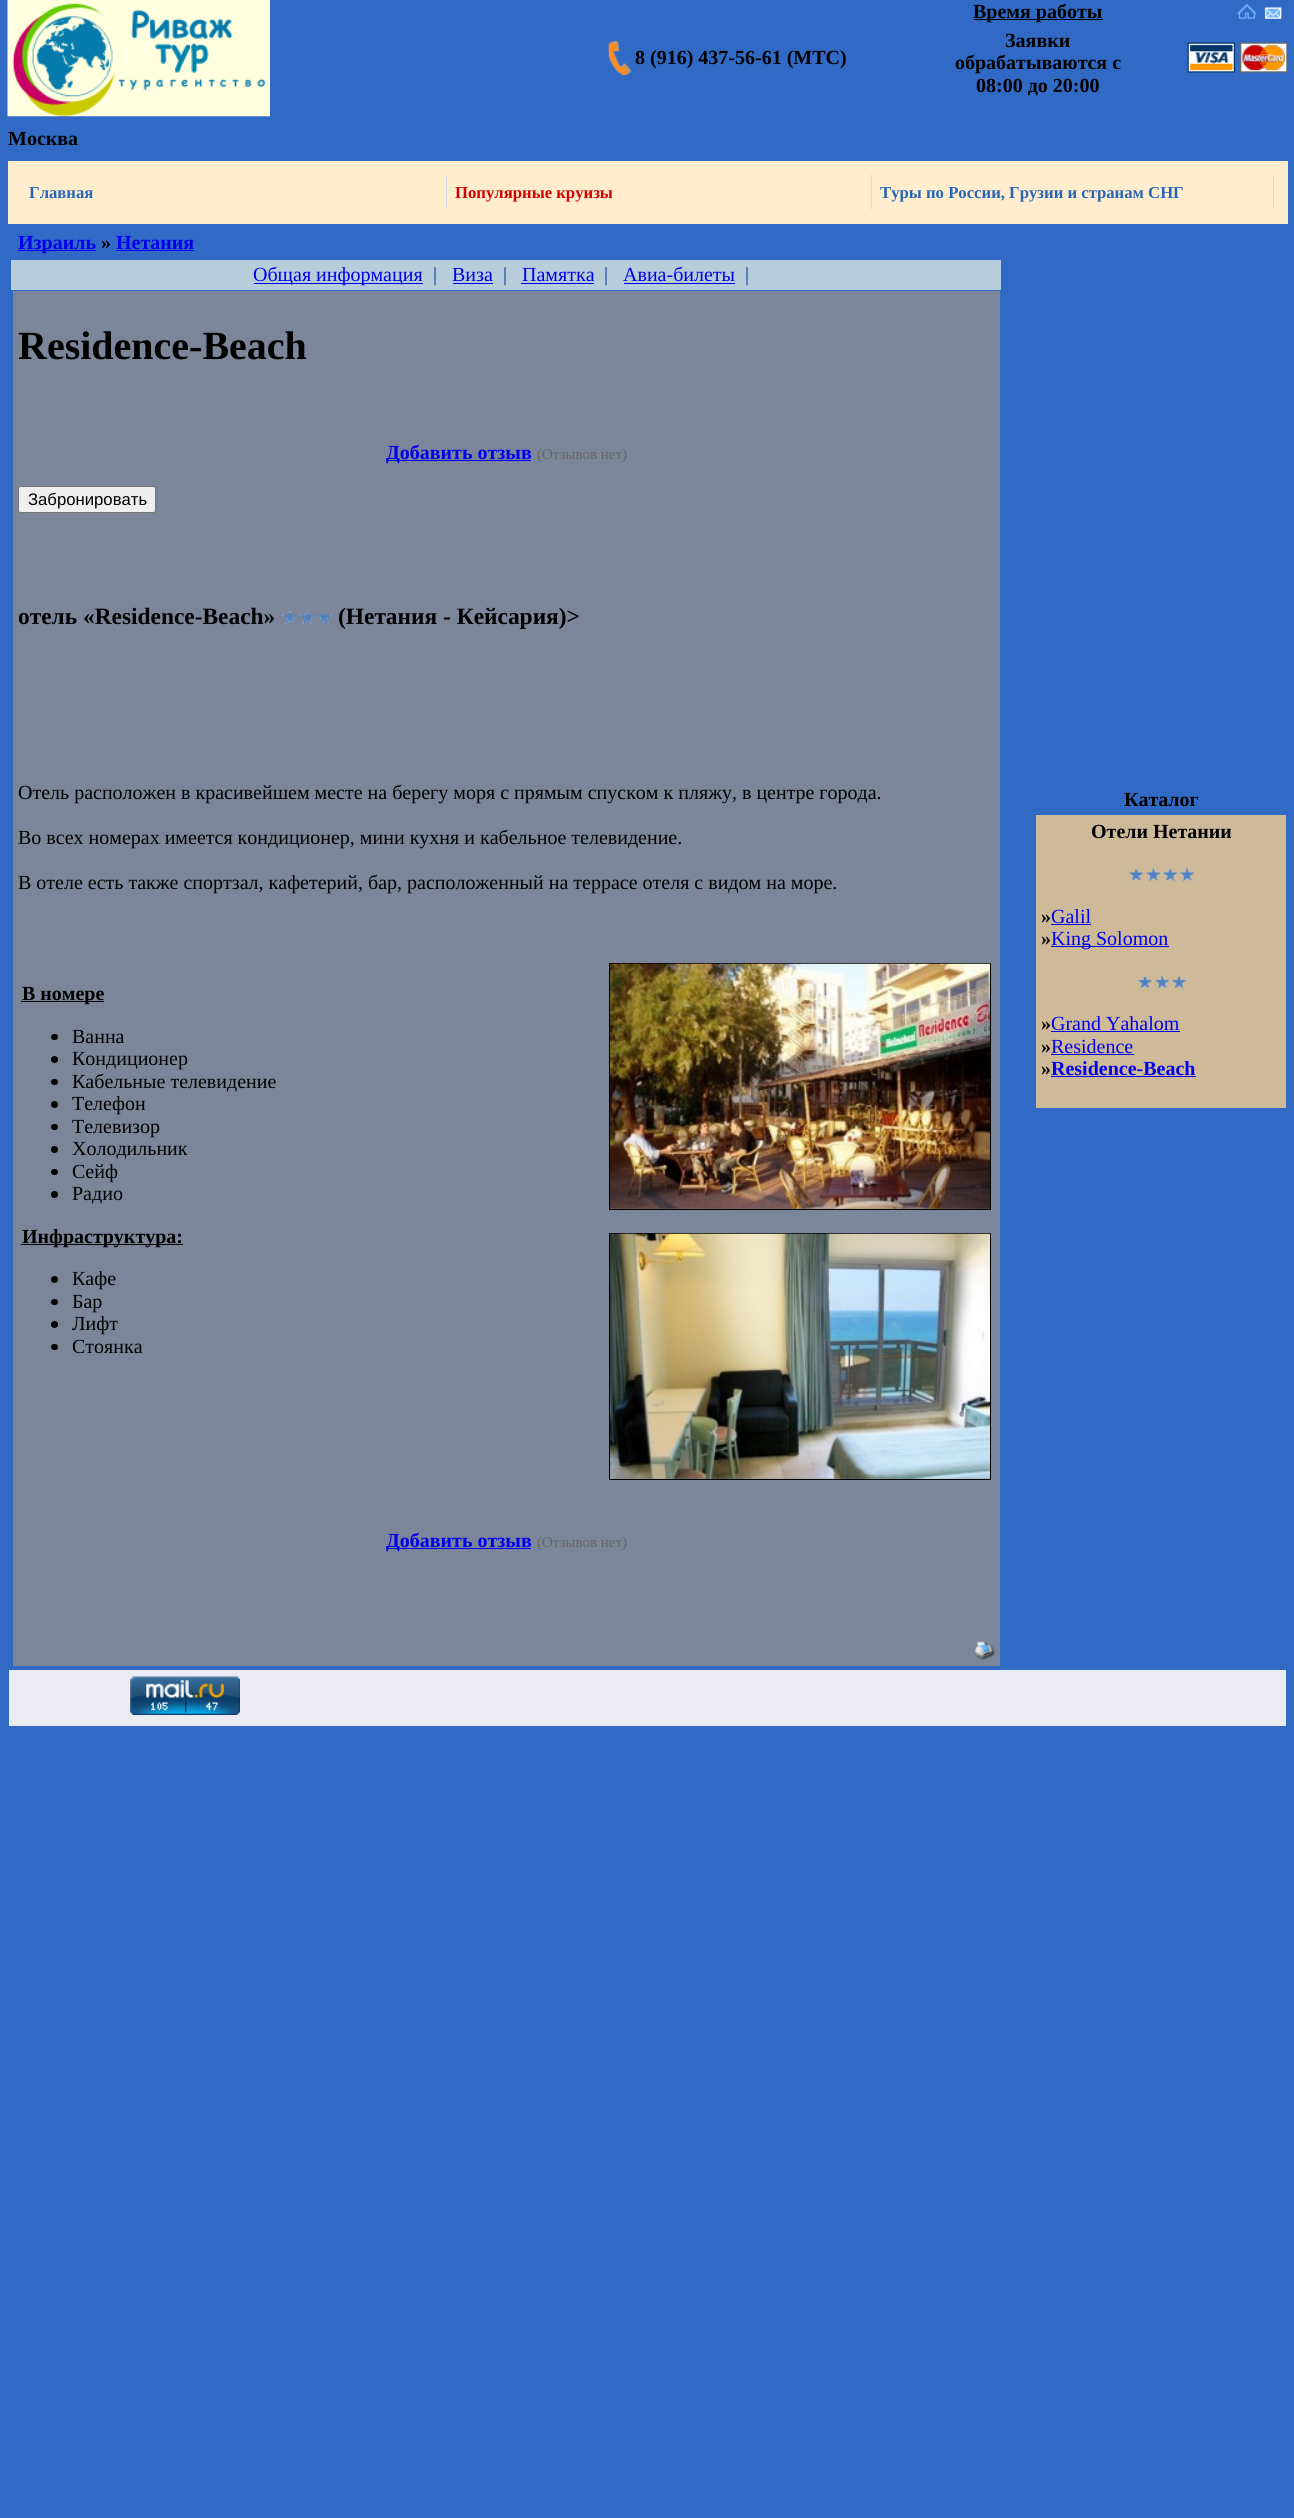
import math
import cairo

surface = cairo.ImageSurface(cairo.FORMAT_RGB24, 1294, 2518)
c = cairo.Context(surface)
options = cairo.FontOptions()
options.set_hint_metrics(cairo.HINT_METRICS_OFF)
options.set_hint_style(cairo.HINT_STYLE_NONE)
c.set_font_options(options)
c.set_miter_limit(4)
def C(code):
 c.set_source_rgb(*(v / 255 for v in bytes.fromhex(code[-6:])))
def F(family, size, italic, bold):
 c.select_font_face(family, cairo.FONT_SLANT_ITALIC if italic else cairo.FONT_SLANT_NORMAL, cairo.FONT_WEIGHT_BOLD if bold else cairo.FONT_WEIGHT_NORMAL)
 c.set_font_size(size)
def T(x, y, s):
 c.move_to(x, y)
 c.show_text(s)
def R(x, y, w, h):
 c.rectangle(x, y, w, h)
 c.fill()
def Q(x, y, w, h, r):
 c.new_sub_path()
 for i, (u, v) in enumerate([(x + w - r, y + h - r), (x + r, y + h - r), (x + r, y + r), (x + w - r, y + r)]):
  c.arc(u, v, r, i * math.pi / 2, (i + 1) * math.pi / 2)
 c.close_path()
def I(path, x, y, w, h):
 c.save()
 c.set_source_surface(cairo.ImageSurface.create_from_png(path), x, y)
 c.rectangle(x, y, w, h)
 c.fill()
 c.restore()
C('316ac5')
c.paint()
I('1.png',7,0,263,117)
I('2.png',608,41,24,34)
F('Liberation Serif',20,0,1)
C('000000')
T(635,64,'8 (916) 437-56-61 (МТС)')
R(974,19,129,1)
T(973,18,'Время работы')
I('3.png',1237,3,20,16)
I('4.png',1264,7,18,12)
I('5.png',1187,42,48,31)
I('6.png',1240,42,48,31)
T(1005,47,'Заявки')
T(955,69,'обрабатываются с')
T(976,92,'08:00 до 20:00')
T(8,145,'Москва')
C('ffedce')
R(8,161,1280,63)
C('d1d8ec')
R(446,175,1,35)
C('ffedce')
R(446,209,2,1)
F('Liberation Serif',16.7,0,1)
C('2666b9')
T(29,198,'Главная')
C('d1d8ec')
R(871,175,1,35)
C('ffedce')
R(871,209,2,1)
C('d40000')
T(455,198,'Популярные круизы')
C('d1d8ec')
R(1273,175,1,35)
C('ffedce')
R(1273,209,1,1)
C('2666b9')
T(880,198,'Туры по России, Грузии и странам СНГ')
C('0000ee')
R(18,250,78,1)
F('Liberation Serif',20,0,1)
T(18,249,'Израиль')
C('000000')
T(101,249,'»')
C('0000ee')
T(116,249,'Нетания')
R(116,250,78,1)
C('b8cddb')
R(11,260,990,30)
C('0000ee')
R(254,283,169,1)
F('Liberation Serif',20,0,0)
T(253,281,'Общая информация')
C('003399')
T(433,281,'|')
C('0000ee')
T(452,281,'Виза')
R(453,283,40,1)
C('003399')
T(503,281,'|')
C('0000ee')
T(522,281,'Памятка')
R(521,283,73,1)
C('003399')
T(604,281,'|')
C('0000ee')
T(623,281,'Авиа-билеты')
R(624,283,111,1)
C('003399')
T(745,281,'|')
C('7b869a')
R(13,291,987,1375)
F('Liberation Serif',40,0,1)
C('000000')
T(18,359,'Residence-Beach')
C('0000ee')
R(386,460,145,1)
F('Liberation Serif',20,0,1)
T(386,459,'Добавить отзыв')
F('Liberation Serif',15,0,0)
C('666666')
T(537,459,'(Отзывов нет)')
C('efefef')
Q(18.5,486.5,137,26,2)
c.fill_preserve()
C('767676')
c.set_line_width(1)
c.stroke()
F('Liberation Sans',16.7,0,0)
C('000000')
T(28,505,'Забронировать')
F('Liberation Serif',23.4,0,1)
T(18,624,'отель «Residence-Beach»')
I('7.png',282,610,50,14)
T(338,624,'(Нетания - Кейсария)>')
F('Liberation Serif',20,0,0)
T(18,799,'Отель расположен в красивейшем месте на берегу моря с прямым спуском к пляжу, в центре города.')
T(18,844,'Во всех номерах имеется кондиционер, мини кухня и кабельное телевидение.')
T(18,889,'В отеле есть также спортзал, кафетерий, бар, расположенный на террасе отеля с видом на море.')
R(21,1001,83,1)
F('Liberation Serif',20,0,1)
T(22,1000,'В номере')
Q(51,1034,7,6,3)
c.fill()
F('Liberation Serif',20,0,0)
T(72,1043,'Ванна')
c.new_path()
c.arc(54.5,1059.5,3.5,0,2 * math.pi)
c.fill()
T(72,1065,'Кондиционер')
Q(51,1079,7,6,3)
c.fill()
T(72,1088,'Кабельные телевидение')
c.new_path()
c.arc(54.5,1104.5,3.5,0,2 * math.pi)
c.fill()
T(72,1110,'Телефон')
Q(51,1124,7,6,3)
c.fill()
T(72,1133,'Телевизор')
c.new_path()
c.arc(54.5,1149.5,3.5,0,2 * math.pi)
c.fill()
T(72,1155,'Холодильник')
Q(51,1169,7,6,3)
c.fill()
T(72,1178,'Сейф')
c.new_path()
c.arc(54.5,1194.5,3.5,0,2 * math.pi)
c.fill()
T(72,1200,'Радио')
R(21,1244,162,1)
F('Liberation Serif',20,0,1)
T(22,1243,'Инфраструктура:')
c.new_path()
c.arc(54.5,1279.5,3.5,0,2 * math.pi)
c.fill()
F('Liberation Serif',20,0,0)
T(72,1285,'Кафе')
Q(51,1299,7,6,3)
c.fill()
T(72,1308,'Бар')
c.new_path()
c.arc(54.5,1324.5,3.5,0,2 * math.pi)
c.fill()
T(72,1330,'Лифт')
Q(51,1344,7,6,3)
c.fill()
T(72,1353,'Стоянка')
c.rectangle(609.5,963.5,381,246)
c.stroke()
I('8.png',610,963,380,246)
c.rectangle(609.5,1233.5,381,246)
c.stroke()
I('9.png',610,1233,380,246)
C('0000ee')
R(386,1548,145,1)
F('Liberation Serif',20,0,1)
T(386,1547,'Добавить отзыв')
F('Liberation Serif',15,0,0)
C('666666')
T(537,1547,'(Отзывов нет)')
I('10.png',975,1641,20,19)
F('Liberation Serif',20,0,1)
C('000000')
T(1124,806,'Каталог')
C('ceba99')
R(1036,815,250,293)
C('000000')
T(1091,838,'Отели Нетании')
I('11.png',1128,867,66,15)
T(1041,923,'»')
F('Liberation Serif',20,0,0)
C('0000ee')
T(1051,923,'Galil')
R(1051,924,40,1)
F('Liberation Serif',20,0,1)
C('000000')
T(1041,945,'»')
C('0000ee')
R(1051,946,118,1)
F('Liberation Serif',20,0,0)
T(1051,945,'King Solomon')
I('12.png',1137,975,50,14)
F('Liberation Serif',20,0,1)
C('000000')
T(1041,1030,'»')
F('Liberation Serif',20,0,0)
C('0000ee')
T(1051,1030,'Grand Yahalom')
R(1051,1031,129,1)
F('Liberation Serif',20,0,1)
C('000000')
T(1041,1053,'»')
F('Liberation Serif',20,0,0)
C('0000ee')
T(1051,1053,'Residence')
R(1051,1054,83,1)
F('Liberation Serif',20,0,1)
C('000000')
T(1041,1075,'»')
C('0000ee')
T(1051,1075,'Residence-Beach')
R(1051,1076,145,1)
C('ecebf4')
R(9,1670,1277,56)
I('13.png',130,1676,110,39)
surface.write_to_png('o.png')
